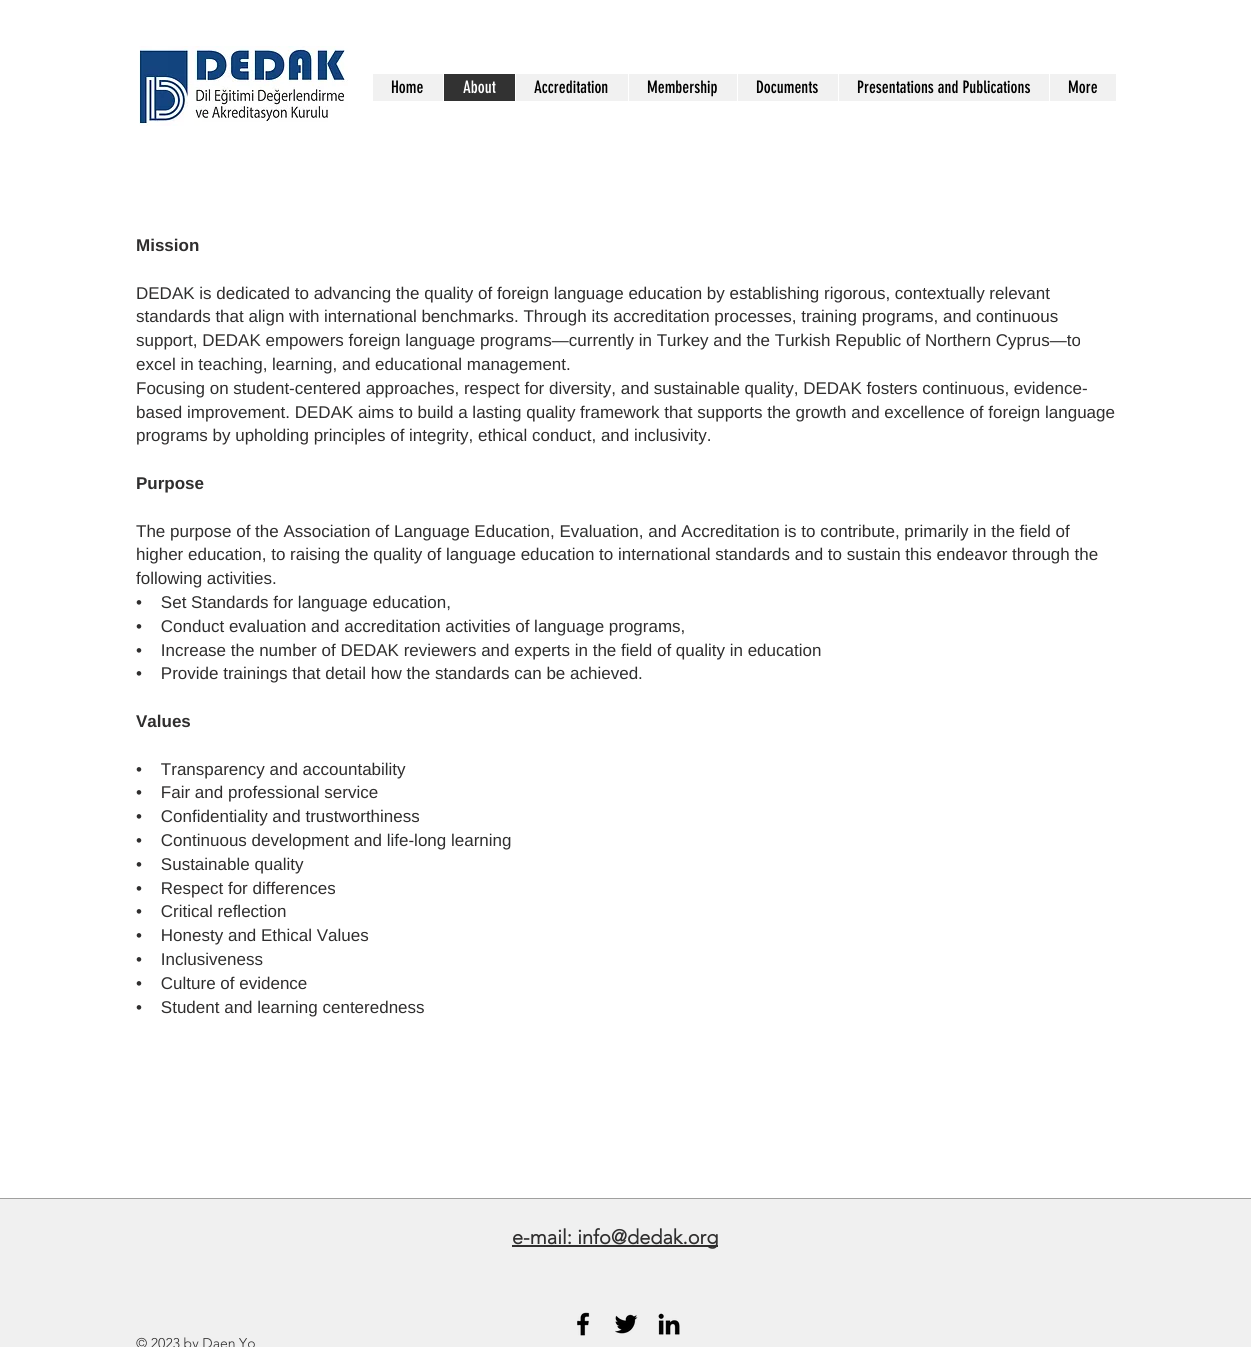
import math
import cairo

surface = cairo.ImageSurface(cairo.FORMAT_RGB24, 1251, 1347)
c = cairo.Context(surface)
options = cairo.FontOptions()
options.set_hint_metrics(cairo.HINT_METRICS_OFF)
options.set_hint_style(cairo.HINT_STYLE_NONE)
c.set_font_options(options)
c.set_miter_limit(4)
def C(code):
 c.set_source_rgb(*(v / 255 for v in bytes.fromhex(code[-6:])))
def F(family, size, italic, bold):
 c.select_font_face(family, cairo.FONT_SLANT_ITALIC if italic else cairo.FONT_SLANT_NORMAL, cairo.FONT_WEIGHT_BOLD if bold else cairo.FONT_WEIGHT_NORMAL)
 c.set_font_size(size)
def T(x, y, s):
 c.move_to(x, y)
 c.show_text(s)
def R(x, y, w, h):
 c.rectangle(x, y, w, h)
 c.fill()
def I(path, x, y, w, h):
 c.save()
 c.set_source_surface(cairo.ImageSurface.create_from_png(path), x, y)
 c.rectangle(x, y, w, h)
 c.fill()
 c.restore()
C('ffffff')
c.paint()
I('1.png',139,46,209,80)
C('f1f1f1')
R(373,74,743,27)
F('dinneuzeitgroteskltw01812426',17,0,0)
C('000000')
T(391,93,'Home')
C('323232')
R(444,74,71,27)
C('ffffff')
R(443,74,1,27)
T(463,93,'About')
R(515,74,1,27)
C('000000')
T(534,93,'Accreditation')
C('ffffff')
R(628,74,1,27)
C('000000')
T(647,93,'Membership')
C('ffffff')
R(737,74,1,27)
C('000000')
T(756,93,'Documents')
C('ffffff')
R(838,74,1,27)
C('000000')
T(857,93,'Presentations and Publications')
C('ffffff')
R(1049,74,1,27)
C('000000')
T(1068,93,'More')
F('Liberation Sans',17,0,1)
C('2f2e2e')
T(136,251,'Mission')
F('Liberation Sans',17,0,0)
T(136,299,'DEDAK is dedicated to advancing the quality of foreign language education by establishing rigorous, contextually relevant')
T(136,322,'standards that align with international benchmarks. Through its accreditation processes, training programs, and continuous')
T(136,346,'support, DEDAK empowers foreign language programs—currently in Turkey and the Turkish Republic of Northern Cyprus—to')
T(136,370,'excel in teaching, learning, and educational management.')
T(136,394,'Focusing on student-centered approaches, respect for diversity, and sustainable quality, DEDAK fosters continuous, evidence-')
T(136,418,'based improvement. DEDAK aims to build a lasting quality framework that supports the growth and excellence of foreign language')
T(136,441,'programs by upholding principles of integrity, ethical conduct, and inclusivity.')
F('Liberation Sans',17,0,1)
T(136,489,'Purpose')
F('Liberation Sans',17,0,0)
T(136,537,'The purpose of the Association of Language Education, Evaluation, and Accreditation is to contribute, primarily in the field of')
T(136,560,'higher education, to raising the quality of language education to international standards and to sustain this endeavor through the')
T(136,584,'following activities.')
T(136,608,'•    Set Standards for language education,')
T(136,632,'•    Conduct evaluation and accreditation activities of language programs,')
T(136,656,'•    Increase the number of DEDAK reviewers and experts in the field of quality in education')
T(136,679,'•    Provide trainings that detail how the standards can be achieved.')
F('Liberation Sans',17,0,1)
T(136,727,'Values')
F('Liberation Sans',17,0,0)
T(136,775,'•    Transparency and accountability')
T(136,798,'•    Fair and professional service')
T(136,822,'•    Confidentiality and trustworthiness')
T(136,846,'•    Continuous development and life-long learning')
T(136,870,'•    Sustainable quality')
T(136,894,'•    Respect for differences')
T(136,917,'•    Critical reflection')
T(136,941,'•    Honesty and Ethical Values')
T(136,965,'•    Inclusiveness')
T(136,989,'•    Culture of evidence')
T(136,1013,'•    Student and learning centeredness')
C('f0f0f0')
R(0,1199,1251,148)
C('a0a09f')
R(0,1198,1251,1)
C('2f2e2e')
R(512,1245,206,2)
F('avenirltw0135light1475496',20,0,1)
T(512,1244,'e-mail: info@dedak.org')
I('2.png',577,1312,13,24)
I('3.png',615,1314,23,20)
I('4.png',658,1313,22,22)
F('avenirltw0135light1475496 Light',14,0,0)
T(136,1348,'© 2023 by Daen Yo')
surface.write_to_png('o.png')
